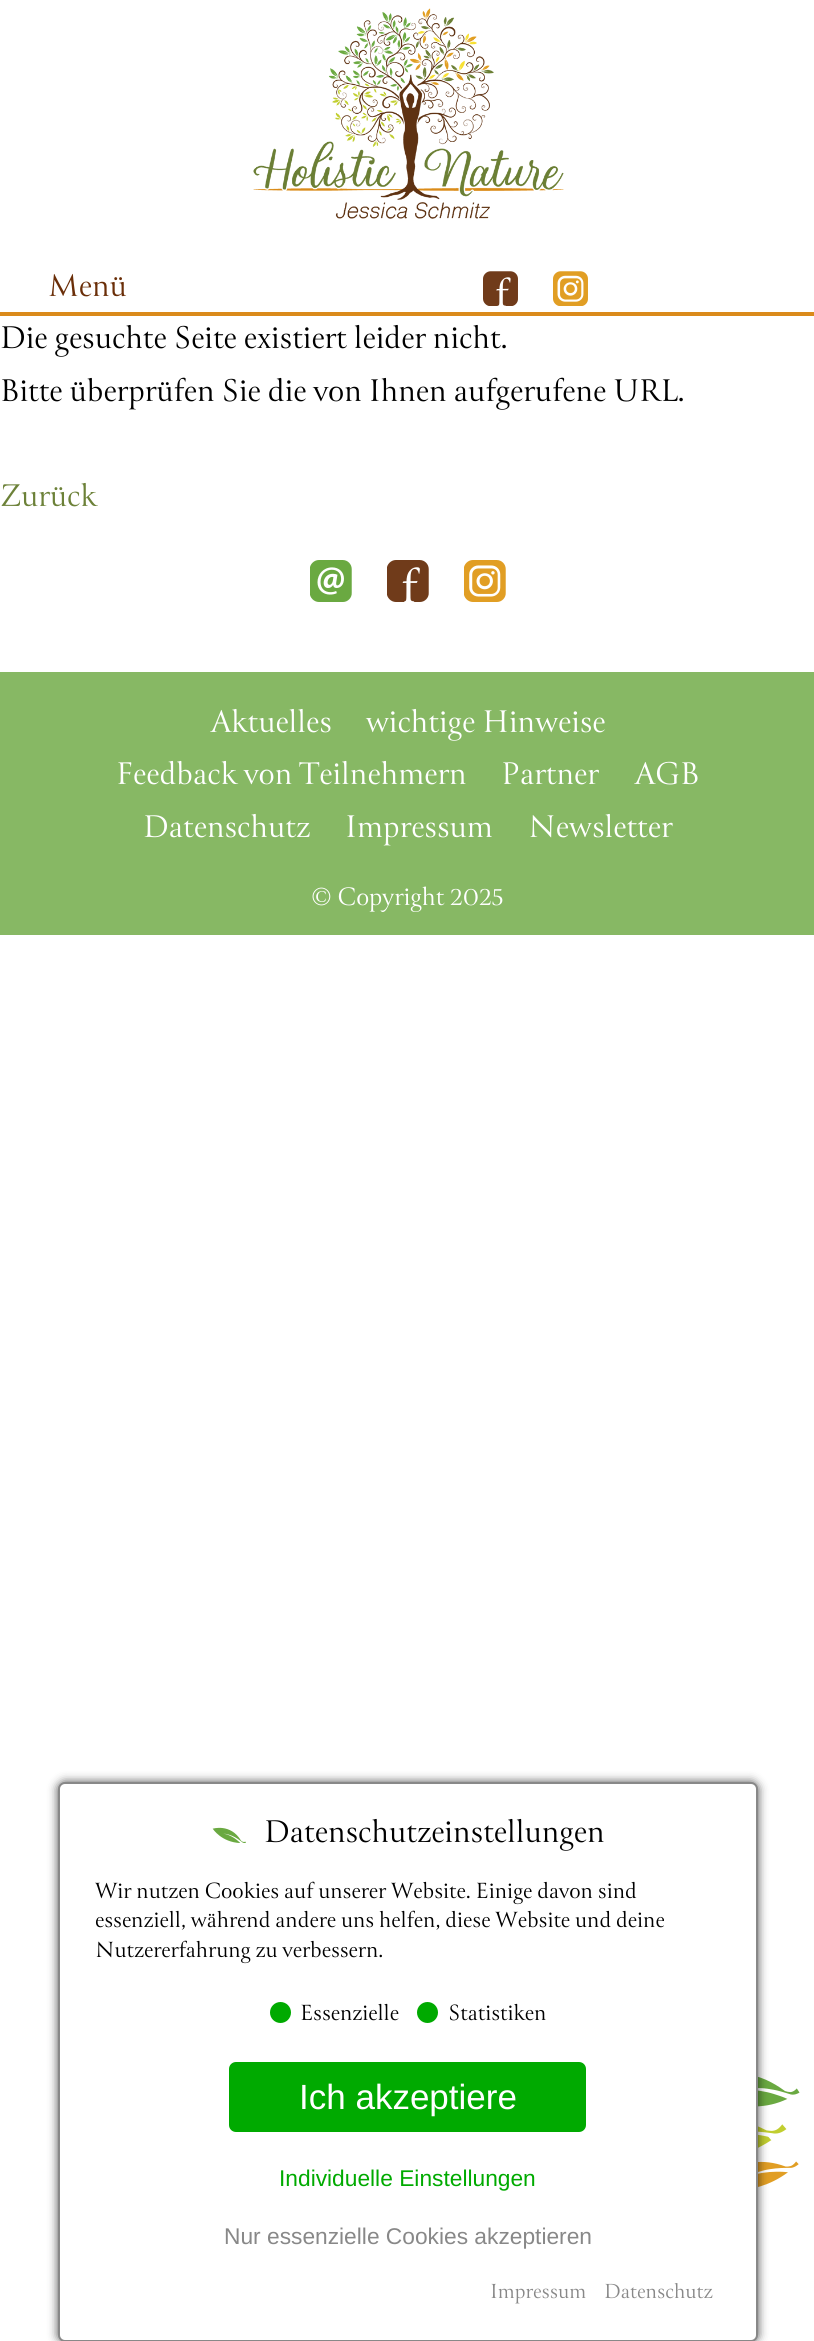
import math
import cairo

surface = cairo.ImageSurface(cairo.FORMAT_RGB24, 814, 2341)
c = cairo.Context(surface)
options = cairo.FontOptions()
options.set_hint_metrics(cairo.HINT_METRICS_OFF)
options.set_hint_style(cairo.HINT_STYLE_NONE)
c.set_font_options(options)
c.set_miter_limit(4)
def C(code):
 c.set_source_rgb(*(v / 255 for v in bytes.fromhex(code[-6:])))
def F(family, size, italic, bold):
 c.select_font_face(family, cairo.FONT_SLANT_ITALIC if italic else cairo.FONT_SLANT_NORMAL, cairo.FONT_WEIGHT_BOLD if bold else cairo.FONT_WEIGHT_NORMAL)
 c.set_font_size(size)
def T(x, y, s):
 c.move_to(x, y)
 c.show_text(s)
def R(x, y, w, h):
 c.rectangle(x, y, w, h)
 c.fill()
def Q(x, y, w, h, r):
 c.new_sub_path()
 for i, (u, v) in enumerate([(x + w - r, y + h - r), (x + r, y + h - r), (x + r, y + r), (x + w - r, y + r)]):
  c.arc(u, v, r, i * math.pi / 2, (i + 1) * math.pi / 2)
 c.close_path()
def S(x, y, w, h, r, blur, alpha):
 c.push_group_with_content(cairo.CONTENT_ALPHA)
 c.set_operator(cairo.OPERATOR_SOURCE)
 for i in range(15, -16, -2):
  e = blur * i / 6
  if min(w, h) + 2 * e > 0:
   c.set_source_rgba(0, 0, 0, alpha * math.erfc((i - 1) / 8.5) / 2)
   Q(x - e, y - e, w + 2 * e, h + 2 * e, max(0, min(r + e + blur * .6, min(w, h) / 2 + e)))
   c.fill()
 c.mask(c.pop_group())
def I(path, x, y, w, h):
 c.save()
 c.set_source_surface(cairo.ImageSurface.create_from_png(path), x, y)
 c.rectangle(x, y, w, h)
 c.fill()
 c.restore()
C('ffffff')
c.paint()
I('1.png',253,8,311,211)
F('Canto',35,0,0)
C('6a2e08')
T(48,296,'Menü')
I('2.png',483,271,35,35)
I('3.png',553,271,35,35)
C('da8a1b')
R(0,312,814,4)
C('000000')
T(0,348,'Die gesuchte Seite existiert leider nicht.')
T(0,401,'Bitte überprüfen Sie die von Ihnen aufgerufene URL.')
C('6c8138')
T(0,506,'Zurück')
I('4.png',310,560,42,42)
I('5.png',387,560,42,42)
I('6.png',464,560,42,42)
C('87b864')
R(0,672,814,263)
C('ffffff')
T(210,732,'Aktuelles')
T(366,732,'wichtige Hinweise')
T(116,784,'Feedback von Teilnehmern')
T(501,784,'Partner')
T(634,784,'AGB')
T(143,837,'Datenschutz')
T(345,837,'Impressum')
T(528,837,'Newsletter')
F('Canto',28,0,0)
T(311,905,'© Copyright 2025')
I('7.png',758,2076,42,111)
C('000000')
S(58,1782,700,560,7,5,.7)
C('ffffff')
Q(59,1783,698,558,6)
c.fill_preserve()
C('888888')
c.stroke()
I('8.png',212,1827,34,16)
F('Canto',35,0,0)
C('000000')
T(264,1842,'Datenschutzeinstellungen')
F('Canto',24.5,0,0)
T(95,1898,'Wir nutzen Cookies auf unserer Website. Einige davon sind')
T(95,1927,'essenziell, während andere uns helfen, diese Website und deine')
T(95,1957,'Nutzererfahrung zu verbessern.')
C('00aa00')
c.new_path()
c.arc(280.5,2012.5,10.5,0,2 * math.pi)
c.fill()
C('000000')
T(300,2020,'Essenzielle')
C('00aa00')
c.new_path()
c.arc(427.5,2012.5,10.5,0,2 * math.pi)
c.fill()
C('000000')
T(448,2020,'Statistiken')
C('00aa00')
Q(229,2062,357,70,7)
c.fill()
F('Liberation Sans',35,0,0)
C('ffffff')
T(299,2109,'Ich akzeptiere')
F('Liberation Sans',22.75,0,0)
C('00aa00')
T(279,2186,'Individuelle Einstellungen')
C('888888')
T(224,2244,'Nur essenzielle Cookies akzeptieren')
F('Canto',22.75,0,0)
T(490,2298,'Impressum')
T(604,2298,'Datenschutz')
surface.write_to_png('o.png')
